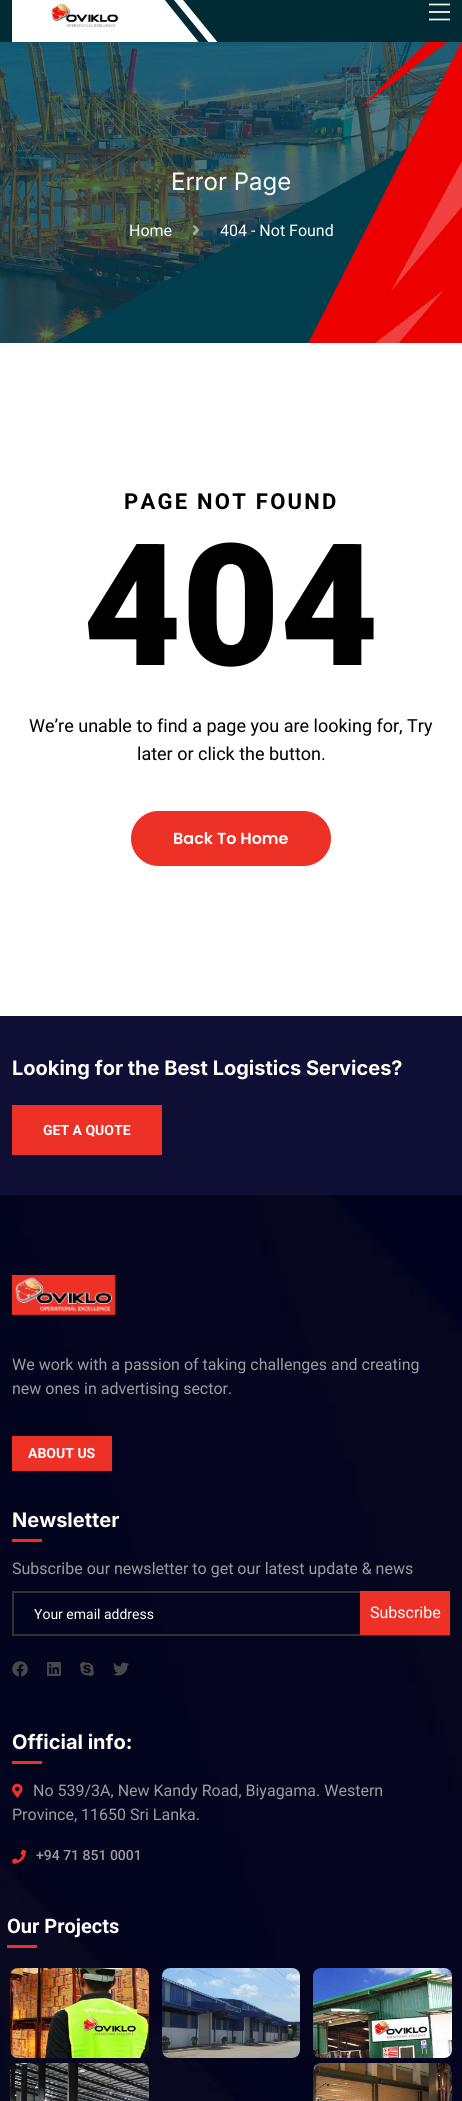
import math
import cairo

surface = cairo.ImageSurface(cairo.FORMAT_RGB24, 462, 2101)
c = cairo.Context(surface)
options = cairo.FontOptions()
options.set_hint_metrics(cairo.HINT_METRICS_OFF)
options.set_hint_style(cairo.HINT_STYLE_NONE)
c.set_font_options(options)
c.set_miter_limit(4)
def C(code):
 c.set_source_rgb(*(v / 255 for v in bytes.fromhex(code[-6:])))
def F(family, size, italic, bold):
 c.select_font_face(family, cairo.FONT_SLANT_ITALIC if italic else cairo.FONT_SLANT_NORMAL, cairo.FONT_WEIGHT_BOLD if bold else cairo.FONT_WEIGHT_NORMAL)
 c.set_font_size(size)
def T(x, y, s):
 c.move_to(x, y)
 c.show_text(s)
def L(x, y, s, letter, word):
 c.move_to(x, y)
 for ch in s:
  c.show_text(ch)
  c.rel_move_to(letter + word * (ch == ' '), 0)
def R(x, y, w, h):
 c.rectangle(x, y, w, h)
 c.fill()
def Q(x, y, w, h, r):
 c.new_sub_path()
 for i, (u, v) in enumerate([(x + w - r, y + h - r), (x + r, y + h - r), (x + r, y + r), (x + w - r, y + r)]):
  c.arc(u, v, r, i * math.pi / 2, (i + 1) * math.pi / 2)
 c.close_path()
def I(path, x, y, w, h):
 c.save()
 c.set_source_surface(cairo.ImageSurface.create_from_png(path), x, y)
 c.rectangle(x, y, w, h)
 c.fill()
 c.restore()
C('ffffff')
c.paint()
C('002a34')
R(0,0,462,42)
C('ffffff')
R(12,0,144,42)
c.save()
c.rectangle(12,0,322,42)
c.clip()
c.new_path()
c.move_to(221,70)
c.line_to(156,70)
c.line_to(156,-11)
c.close_path()
c.fill()
c.restore()
I('1.png',51,3,68,24)
c.save()
c.rectangle(12,0,322,42)
c.clip()
c.new_path()
c.move_to(165,-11)
c.line_to(170,-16)
c.line_to(246,77)
c.line_to(241,82)
c.close_path()
c.fill()
c.restore()
I('2.png',429,3,21,18)
I('3.png',0,42,462,301)
I('4.png',53,42,409,301)
F('Inter',24,0,0)
T(171,190,'Error Page')
F('Roboto',16,0,0)
T(129,236,'Home')
I('5.png',192,225,8,10)
T(220,236,'404 - Not Found')
F('Roboto',22,0,1)
C('000000')
L(124,509,'PAGE NOT FOUND',2.25,0)
F('Roboto Black',170,0,0)
T(83,665,'404')
F('Roboto',18,0,0)
T(29,732,'We’re unable to find a page you are looking for, Try')
T(137,760,'later or click the button.')
C('ed3126')
Q(131,811,200,55,27.5)
c.fill()
F('Poppins SemiBold',16,0,0)
C('ffffff')
T(173,844,'Back To Home')
I('6.png',0,1195,462,906)
C('0f0f35')
R(0,1016,462,179)
F('Inter',20,0,1)
C('ffffff')
T(12,1075,'Looking for the Best Logistics Services?')
C('ed3126')
R(12,1105,150,50)
F('Roboto',14,0,1)
C('ffffff')
T(43,1135,'GET A QUOTE')
I('7.png',12,1275,104,41)
F('Roboto',16,0,0)
C('9d9d9d')
T(12,1370,'We work with a passion of taking challenges and creating')
T(12,1394,'new ones in advertising sector.')
C('ed3126')
R(12,1436,100,35)
F('Roboto',14,0,1)
C('ffffff')
T(28,1458,'ABOUT US')
F('Inter',20,0,1)
T(12,1527,'Newsletter')
C('ed3126')
R(12,1539,30,3)
F('Roboto',16,0,0)
C('9d9d9d')
T(12,1574,'Subscribe our newsletter to get our latest update & news')
c.rectangle(13,1592,436,43)
C('313131')
c.stroke()
F('Roboto',14,0,0)
C('ffffff')
T(34,1619,'Your email address')
C('ed3126')
R(360,1591,90,44)
F('Roboto',16,0,0)
C('ffffff')
T(370,1618,'Subscribe')
I('8.png',12,1661,16,16)
I('9.png',47,1662,14,14)
I('10.png',80,1662,14,14)
I('11.png',113,1662,16,14)
F('Inter',20,0,1)
T(12,1749,'Official info:')
C('ed3126')
R(12,1761,30,3)
I('12.png',12,1783,11,15)
F('Roboto',16,0,0)
C('9d9d9d')
T(33,1796,'No 539/3A, New Kandy Road, Biyagama. Western')
T(12,1820,'Province, 11650 Sri Lanka.')
I('13.png',12,1849,14,15)
F('Roboto Medium',14,0,0)
T(36,1860,'+94 71 851 0001')
F('Roboto',20,0,1)
C('ffffff')
T(7,1933,'Our Projects')
C('ed3126')
R(7,1945,30,3)
I('14.png',10,1968,139,90)
I('15.png',162,1968,138,90)
I('16.png',313,1968,139,90)
I('17.png',10,2063,139,38)
I('18.png',313,2063,139,38)
surface.write_to_png('o.png')
